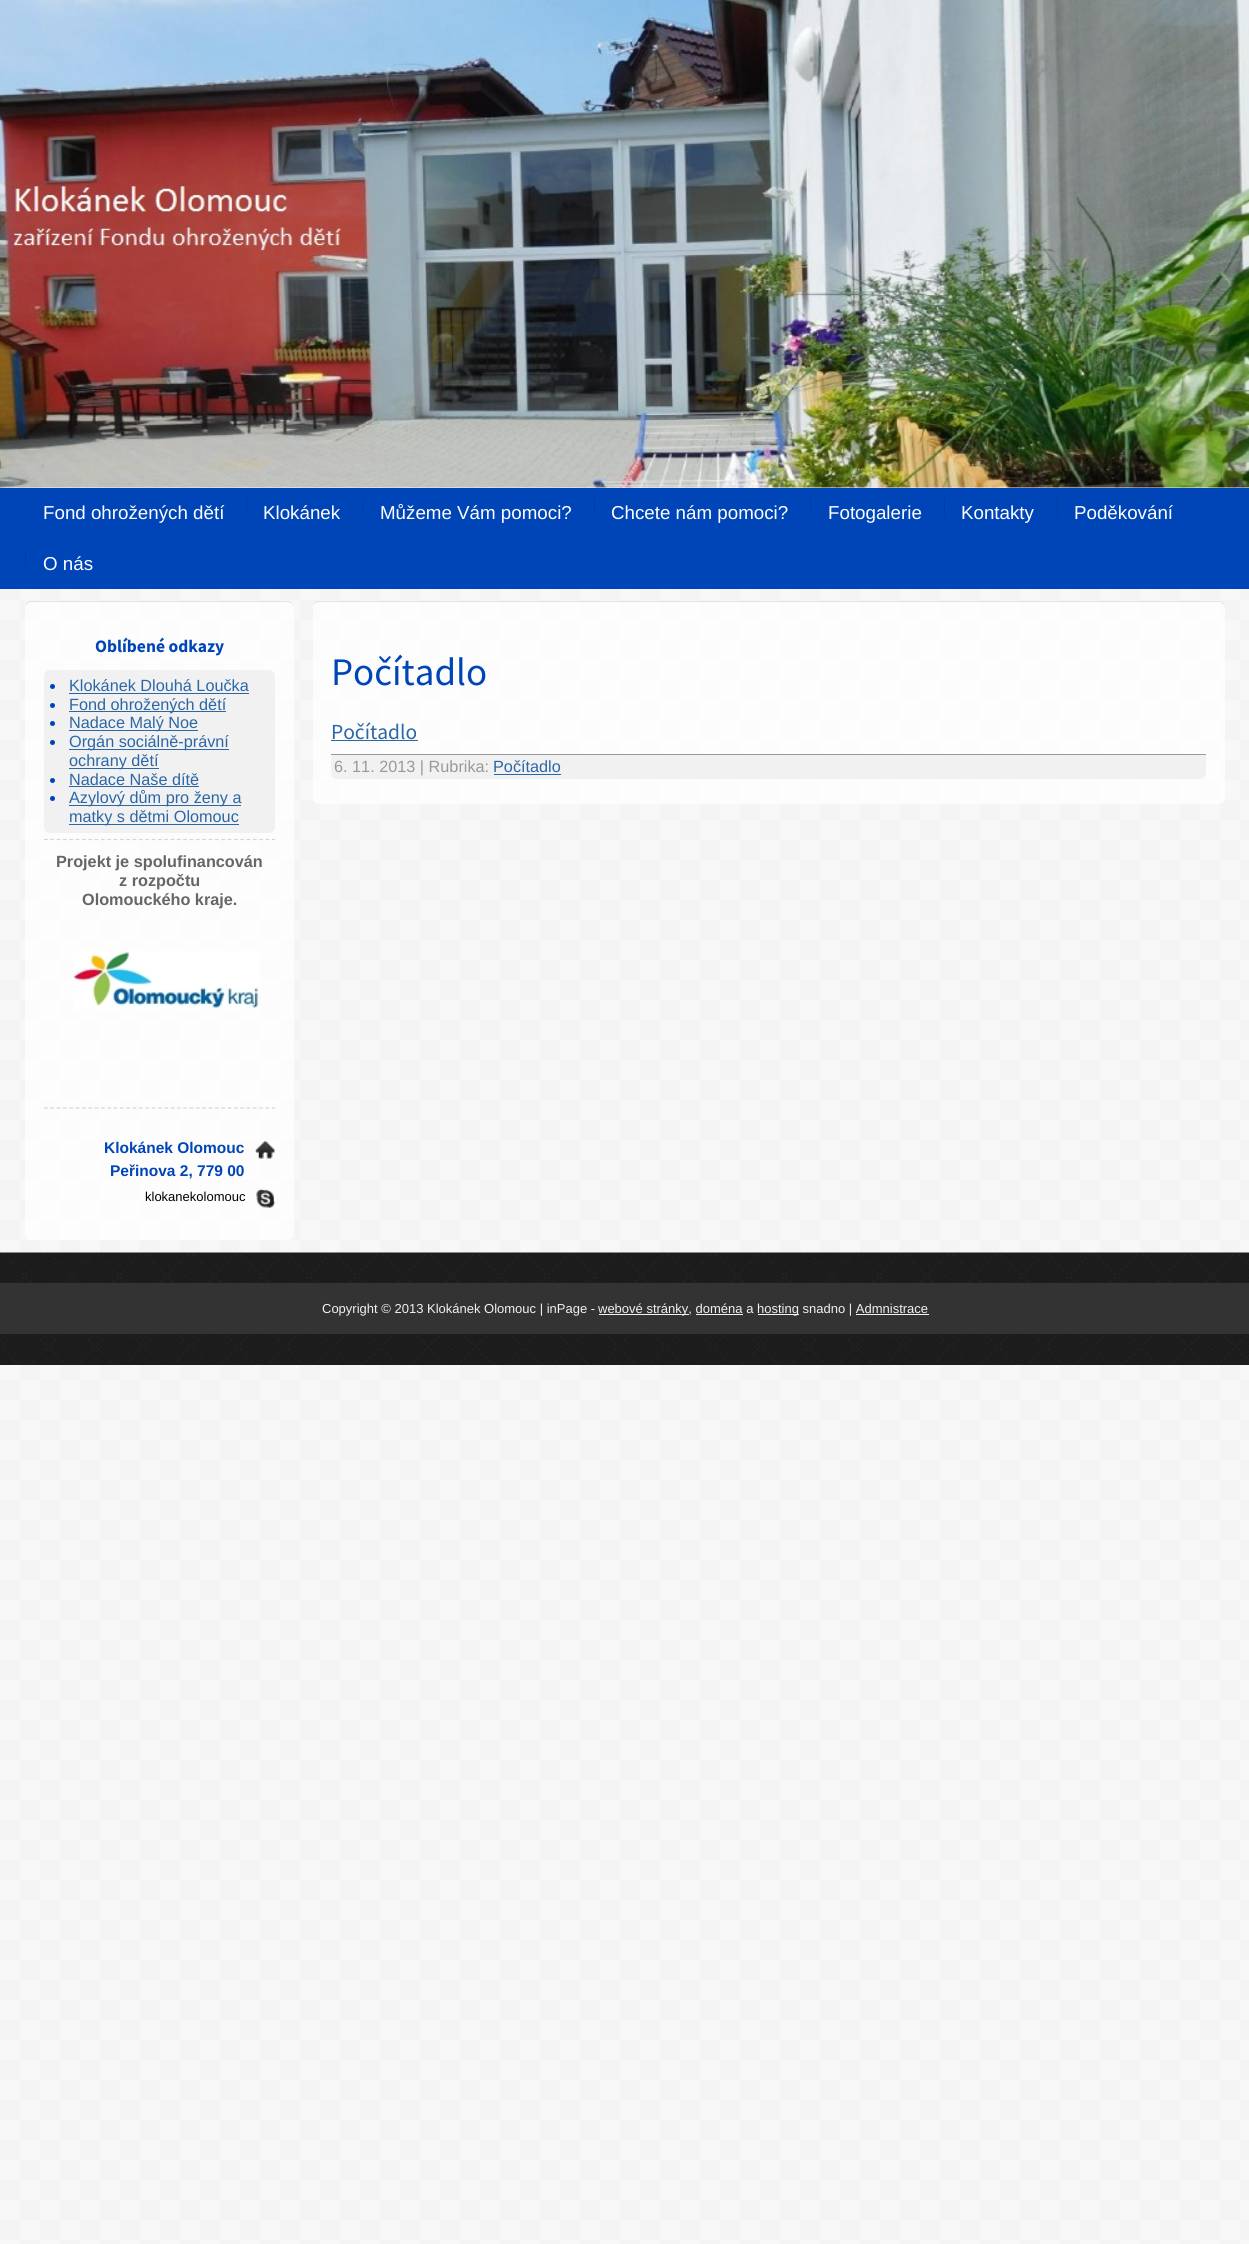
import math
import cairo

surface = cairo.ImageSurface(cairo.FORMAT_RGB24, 1249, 2244)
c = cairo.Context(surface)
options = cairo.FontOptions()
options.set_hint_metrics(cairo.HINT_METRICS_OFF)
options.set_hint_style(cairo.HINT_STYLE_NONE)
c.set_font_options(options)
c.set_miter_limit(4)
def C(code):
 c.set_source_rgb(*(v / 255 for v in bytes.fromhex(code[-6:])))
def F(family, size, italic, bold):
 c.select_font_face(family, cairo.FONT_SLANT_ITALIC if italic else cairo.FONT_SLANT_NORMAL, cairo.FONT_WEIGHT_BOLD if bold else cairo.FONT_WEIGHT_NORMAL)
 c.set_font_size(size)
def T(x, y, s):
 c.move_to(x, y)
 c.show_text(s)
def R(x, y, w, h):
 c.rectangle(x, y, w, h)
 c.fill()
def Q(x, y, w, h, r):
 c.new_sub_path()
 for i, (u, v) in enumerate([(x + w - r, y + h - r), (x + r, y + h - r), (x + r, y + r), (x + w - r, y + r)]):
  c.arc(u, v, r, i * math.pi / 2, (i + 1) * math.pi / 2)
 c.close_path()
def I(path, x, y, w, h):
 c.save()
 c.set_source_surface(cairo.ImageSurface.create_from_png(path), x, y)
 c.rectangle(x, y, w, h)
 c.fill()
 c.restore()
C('ffffff')
c.paint()
I('1.png',0,487,1249,1757)
I('2.png',0,0,1249,488)
C('0045b8')
R(0,488,1249,101)
F('Liberation Sans',18.75,0,0)
C('ffffff')
T(43,519,'Fond ohrožených dětí')
I('3.png',246,496,2,22)
T(263,519,'Klokánek')
I('4.png',362,496,2,22)
T(380,519,'Můžeme Vám pomoci?')
I('5.png',593,495,2,24)
T(611,519,'Chcete nám pomoci?')
I('6.png',810,495,2,24)
T(828,519,'Fotogalerie')
I('5.png',943,495,2,24)
T(961,519,'Kontakty')
I('3.png',1056,496,2,22)
T(1074,519,'Poděkování')
I('7.png',25,546,2,24)
T(43,570,'O nás')
c.set_source_rgba(1,1,1,0.7)
Q(25,601,269,639,6)
c.fill()
c.set_source_rgba(0,0,0,0.1)
c.new_path()
c.move_to(31,602)
c.line_to(288,602)
c.curve_to(291,602,294,605,294,609)
c.curve_to(294,606,293,602,289,601)
c.line_to(30,601)
c.curve_to(26,602,25,606,25,609)
c.curve_to(25,605,28,602,31,602)
c.close_path()
c.fill()
F('Source Sans Pro',17.5,0,1)
C('0045b8')
T(95,652,'Oblíbené odkazy')
C('f1f1f1')
Q(44,670,231,163,6)
c.fill()
C('0045b8')
c.arc(52.5,686.5,2.5,0,2 * math.pi)
c.fill()
F('Liberation Sans',16.25,0,0)
C('2b67a6')
T(69,691,'Klokánek Dlouhá Loučka')
R(69,693,180,1)
C('0045b8')
c.new_path()
c.arc(52.5,705.5,2.5,0,2 * math.pi)
c.fill()
C('2b67a6')
R(69,711,157,1)
T(69,710,'Fond ohrožených dětí')
C('0045b8')
c.new_path()
c.arc(52.5,723.5,2.5,0,2 * math.pi)
c.fill()
C('2b67a6')
R(69,730,129,1)
T(69,728,'Nadace Malý Noe')
C('0045b8')
c.new_path()
c.arc(52.5,742.5,2.5,0,2 * math.pi)
c.fill()
C('2b67a6')
R(69,749,160,1)
T(69,747,'Orgán sociálně-právní')
R(69,768,90,1)
T(69,766,'ochrany dětí')
C('0045b8')
c.new_path()
c.arc(52.5,780.5,2.5,0,2 * math.pi)
c.fill()
C('2b67a6')
T(69,785,'Nadace Naše dítě')
R(69,786,130,1)
C('0045b8')
c.new_path()
c.arc(52.5,798.5,2.5,0,2 * math.pi)
c.fill()
C('2b67a6')
R(69,805,172,1)
T(69,803,'Azylový dům pro ženy a')
R(69,824,170,1)
T(69,822,'matky s dětmi Olomouc')
c.new_path()
c.move_to(44,839.5)
c.line_to(275,839.5)
C('d5d5d5')
c.set_line_width(1.2)
c.set_dash([3.75,2.58])
c.stroke()
F('Liberation Sans',16.25,0,1)
C('666666')
T(56,867,'Projekt je spolufinancován')
T(119,886,'z rozpočtu')
T(82,905,'Olomouckého kraje.')
I('8.png',73,951,187,58)
c.new_path()
c.move_to(44,1108)
c.line_to(275,1108)
C('d5d5d5')
c.stroke()
I('9.png',255,1141,20,18)
F('Liberation Sans',15.5,0,1)
C('0045b8')
T(104,1153,'Klokánek Olomouc')
T(110,1176,'Peřinova 2, 779 00')
I('10.png',256,1188,19,20)
F('Liberation Sans',13,0,0)
C('000000')
T(145,1201,'klokanekolomouc')
c.set_source_rgba(1,1,1,0.7)
Q(313,601,912,203,6)
c.fill()
c.set_source_rgba(0,0,0,0.1)
c.new_path()
c.move_to(319,602)
c.line_to(1219,602)
c.curve_to(1222,602,1225,605,1225,609)
c.line_to(1225,607)
c.curve_to(1225,604,1222,601,1219,601)
c.line_to(319,601)
c.curve_to(317,601,314,602,314,605)
c.curve_to(315,603,317,602,319,602)
c.close_path()
c.fill()
F('Source Sans Pro',39,0,0)
C('0045b8')
T(331,685,'Počítadlo')
F('Source Sans Pro',21.5,0,0)
C('2b67a6')
T(331,739,'Počítadlo')
R(331,740,87,1)
C('f1f1f1')
c.new_path()
c.move_to(331,754)
c.line_to(1206,754)
c.line_to(1206,773)
c.curve_to(1206,776.5,1203.5,779,1200,779)
c.line_to(337,779)
c.curve_to(333.5,779,331,776.5,331,773)
c.close_path()
c.fill()
C('999999')
R(331,754,875,1)
F('Liberation Sans',16.25,0,0)
T(334,772,'6. 11. 2013 | Rubrika:')
C('2b67a6')
T(493,772,'Počítadlo')
R(494,774,67,1)
I('11.png',0,1252,1249,113)
C('333333')
R(0,1283,1249,51)
F('Liberation Sans',13,0,0)
C('f1f1f1')
T(322,1313,'Copyright © 2013 Klokánek Olomouc | inPage -')
R(599,1314,90,1)
T(598,1313,'webové stránky, doména a')
R(758,1314,41,1)
T(757,1313,'hosting snadno | Admnistrace')
R(696,1314,47,1)
R(856,1314,73,1)
surface.write_to_png('o.png')
